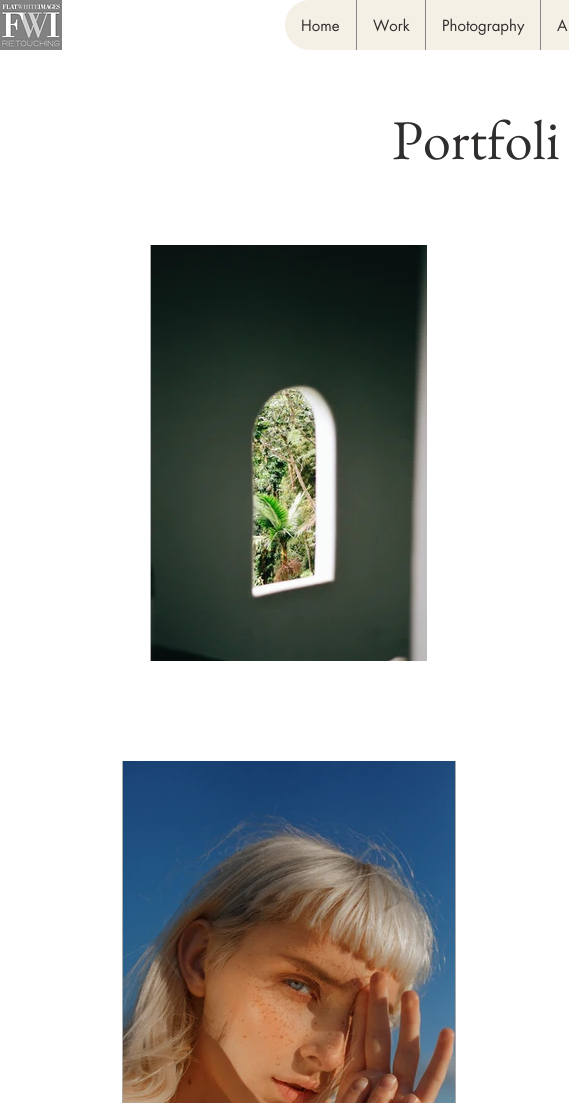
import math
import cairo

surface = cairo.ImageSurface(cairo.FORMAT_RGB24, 569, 1103)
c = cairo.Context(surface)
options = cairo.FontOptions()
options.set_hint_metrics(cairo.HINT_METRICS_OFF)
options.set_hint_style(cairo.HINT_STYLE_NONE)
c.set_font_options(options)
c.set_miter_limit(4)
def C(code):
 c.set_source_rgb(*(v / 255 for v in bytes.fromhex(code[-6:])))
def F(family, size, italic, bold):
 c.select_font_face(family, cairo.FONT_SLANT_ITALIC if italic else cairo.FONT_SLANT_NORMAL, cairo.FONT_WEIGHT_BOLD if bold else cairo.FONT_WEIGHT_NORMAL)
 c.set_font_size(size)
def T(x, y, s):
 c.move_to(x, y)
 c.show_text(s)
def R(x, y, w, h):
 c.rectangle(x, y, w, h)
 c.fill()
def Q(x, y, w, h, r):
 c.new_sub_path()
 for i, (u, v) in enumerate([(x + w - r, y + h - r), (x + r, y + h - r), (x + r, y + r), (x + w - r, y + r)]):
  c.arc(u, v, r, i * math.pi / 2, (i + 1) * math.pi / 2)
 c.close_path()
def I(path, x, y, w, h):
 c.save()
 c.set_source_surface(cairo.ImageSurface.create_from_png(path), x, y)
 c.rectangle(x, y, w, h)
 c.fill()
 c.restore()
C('ffffff')
c.paint()
I('1.png',0,0,62,50)
C('f4f0e6')
Q(285,0,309,50,25)
c.fill()
F('futura',15,0,0)
C('302d2d')
T(301,31,'Home')
C('858585')
R(356,0,1,50)
C('302d2d')
T(373,31,'Work')
C('858585')
R(425,0,1,50)
C('302d2d')
T(442,31,'Photography')
C('858585')
R(540,0,1,50)
C('302d2d')
T(557,31,'A')
F('EB Garamond',56,0,0)
T(392,159,'Portfoli')
C('aaaaaa')
R(150,245,1,416)
I('2.png',151,245,276,416)
R(122,761,334,342)
I('3.png',123,761,332,342)
surface.write_to_png('o.png')
